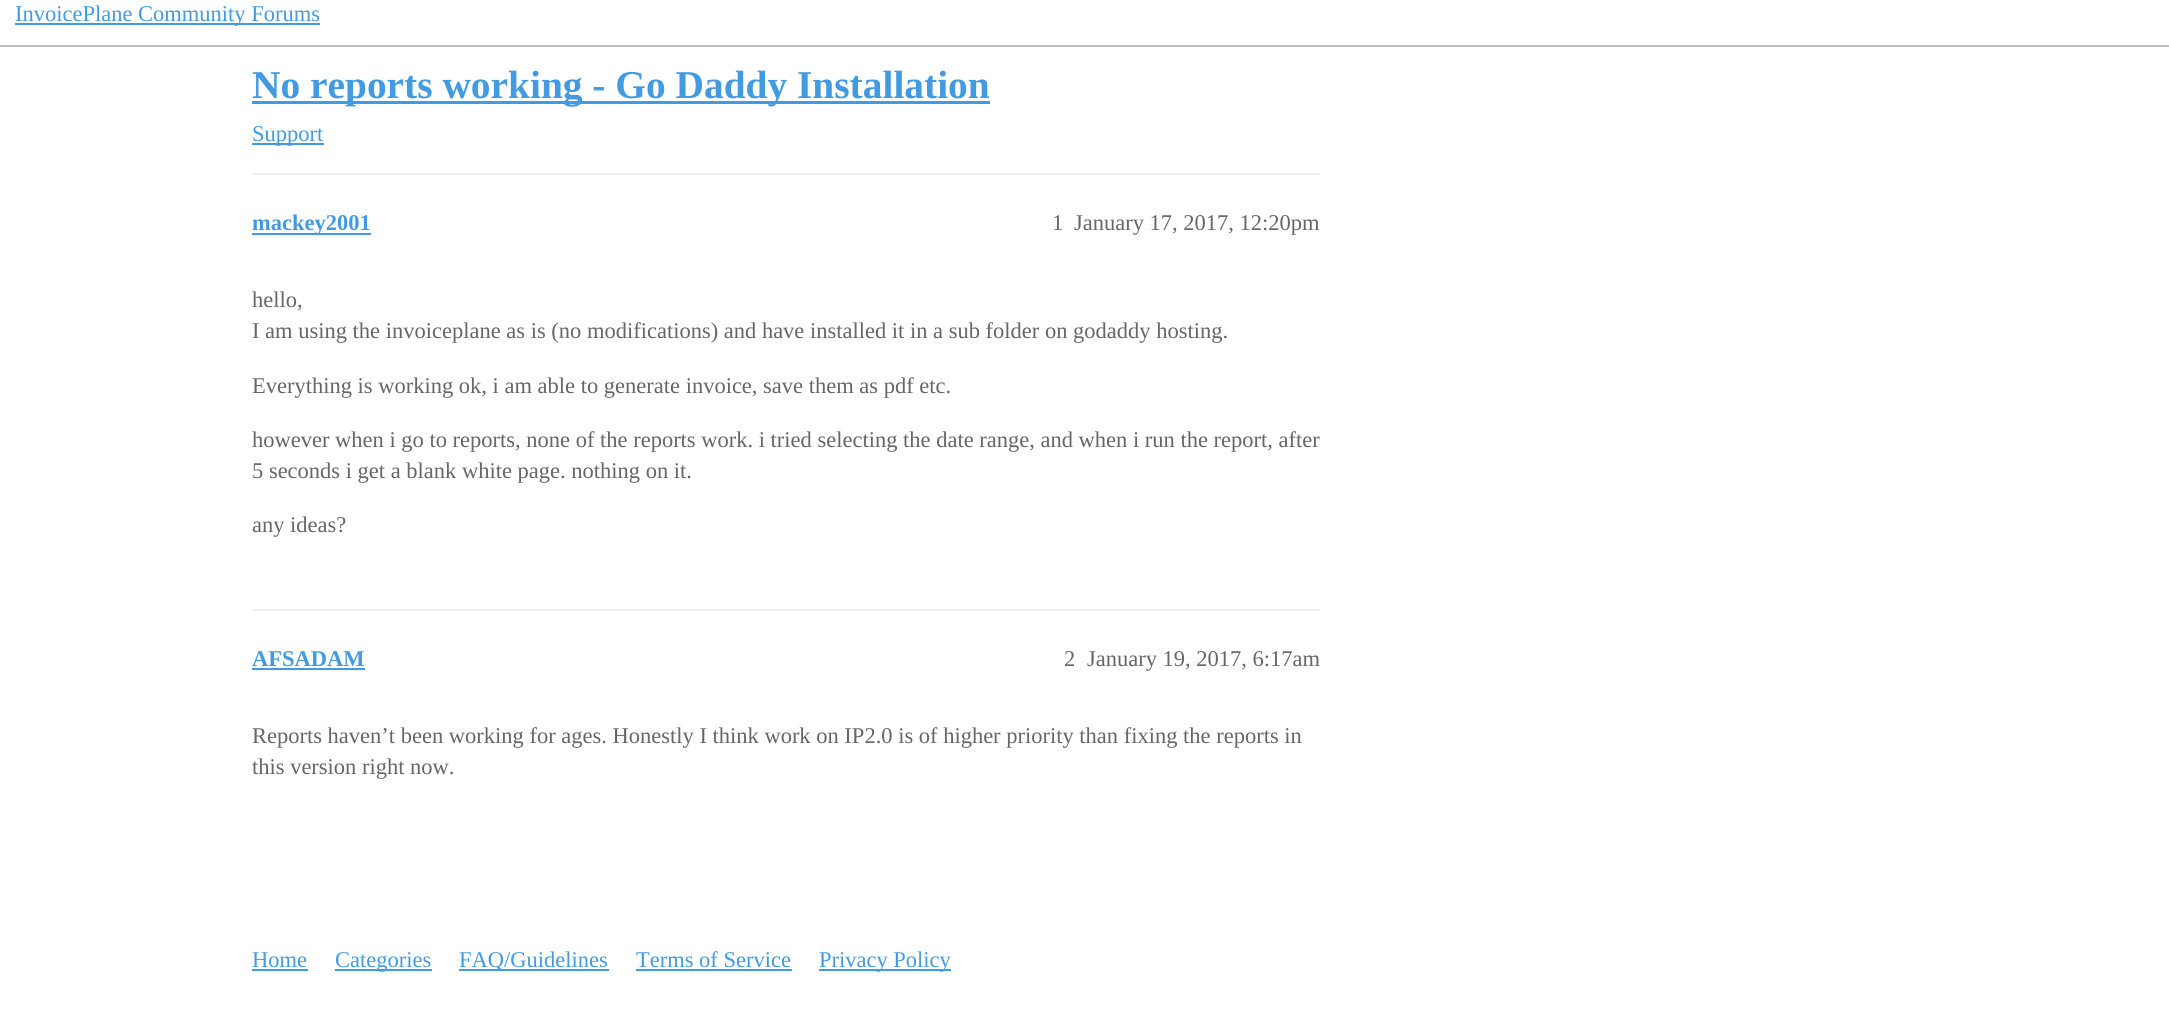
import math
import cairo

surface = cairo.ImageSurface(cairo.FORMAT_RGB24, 2169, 1025)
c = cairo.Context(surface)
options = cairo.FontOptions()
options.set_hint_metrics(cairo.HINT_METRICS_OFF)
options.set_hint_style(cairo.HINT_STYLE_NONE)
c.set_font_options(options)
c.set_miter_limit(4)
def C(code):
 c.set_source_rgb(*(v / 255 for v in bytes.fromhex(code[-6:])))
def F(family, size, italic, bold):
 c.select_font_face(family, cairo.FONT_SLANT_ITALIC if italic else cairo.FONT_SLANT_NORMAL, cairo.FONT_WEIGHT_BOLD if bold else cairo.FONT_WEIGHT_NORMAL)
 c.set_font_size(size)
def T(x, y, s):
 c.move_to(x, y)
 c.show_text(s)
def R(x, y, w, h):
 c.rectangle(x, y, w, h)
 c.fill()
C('ffffff')
c.paint()
C('bbbbbb')
R(0,45,2169,2)
C('429ae1')
R(15,23,305,2)
F('Liberation Serif',22.5,0,0)
T(15,21,'InvoicePlane Community Forums')
R(252,101,738,3)
F('Liberation Serif',39.4,0,1)
T(252,98,'No reports working - Go Daddy Installation')
R(252,143,72,2)
F('Liberation Serif',22.5,0,0)
T(252,141,'Support')
C('f0f0f0')
R(252,173,1068,2)
C('429ae1')
R(252,233,119,2)
F('Liberation Serif',22.5,0,1)
T(252,230,'mackey2001')
F('Liberation Serif',22.5,0,0)
C('666666')
T(1052,230,'1')
T(1074,230,'January 17, 2017, 12:20pm')
T(252,307,'hello,')
T(252,338,'I am using the invoiceplane as is (no modifications) and have installed it in a sub folder on godaddy hosting.')
T(252,393,'Everything is working ok, i am able to generate invoice, save them as pdf etc.')
T(252,447,'however when i go to reports, none of the reports work. i tried selecting the date range, and when i run the report, after')
T(252,478,'5 seconds i get a blank white page. nothing on it.')
T(252,532,'any ideas?')
C('f0f0f0')
R(252,609,1068,2)
F('Liberation Serif',22.5,0,1)
C('429ae1')
T(252,666,'AFSADAM')
R(252,668,113,2)
F('Liberation Serif',22.5,0,0)
C('666666')
T(1064,666,'2')
T(1087,666,'January 19, 2017, 6:17am')
T(252,743,'Reports haven’t been working for ages. Honestly I think work on IP2.0 is of higher priority than fixing the reports in')
T(252,774,'this version right now.')
C('429ae1')
T(252,967,'Home')
R(252,969,56,2)
R(335,969,97,2)
T(335,967,'Categories')
R(459,969,150,2)
T(459,967,'FAQ/Guidelines')
T(636,967,'Terms of Service')
R(636,969,156,2)
R(819,969,132,2)
T(819,967,'Privacy Policy')
surface.write_to_png('o.png')
